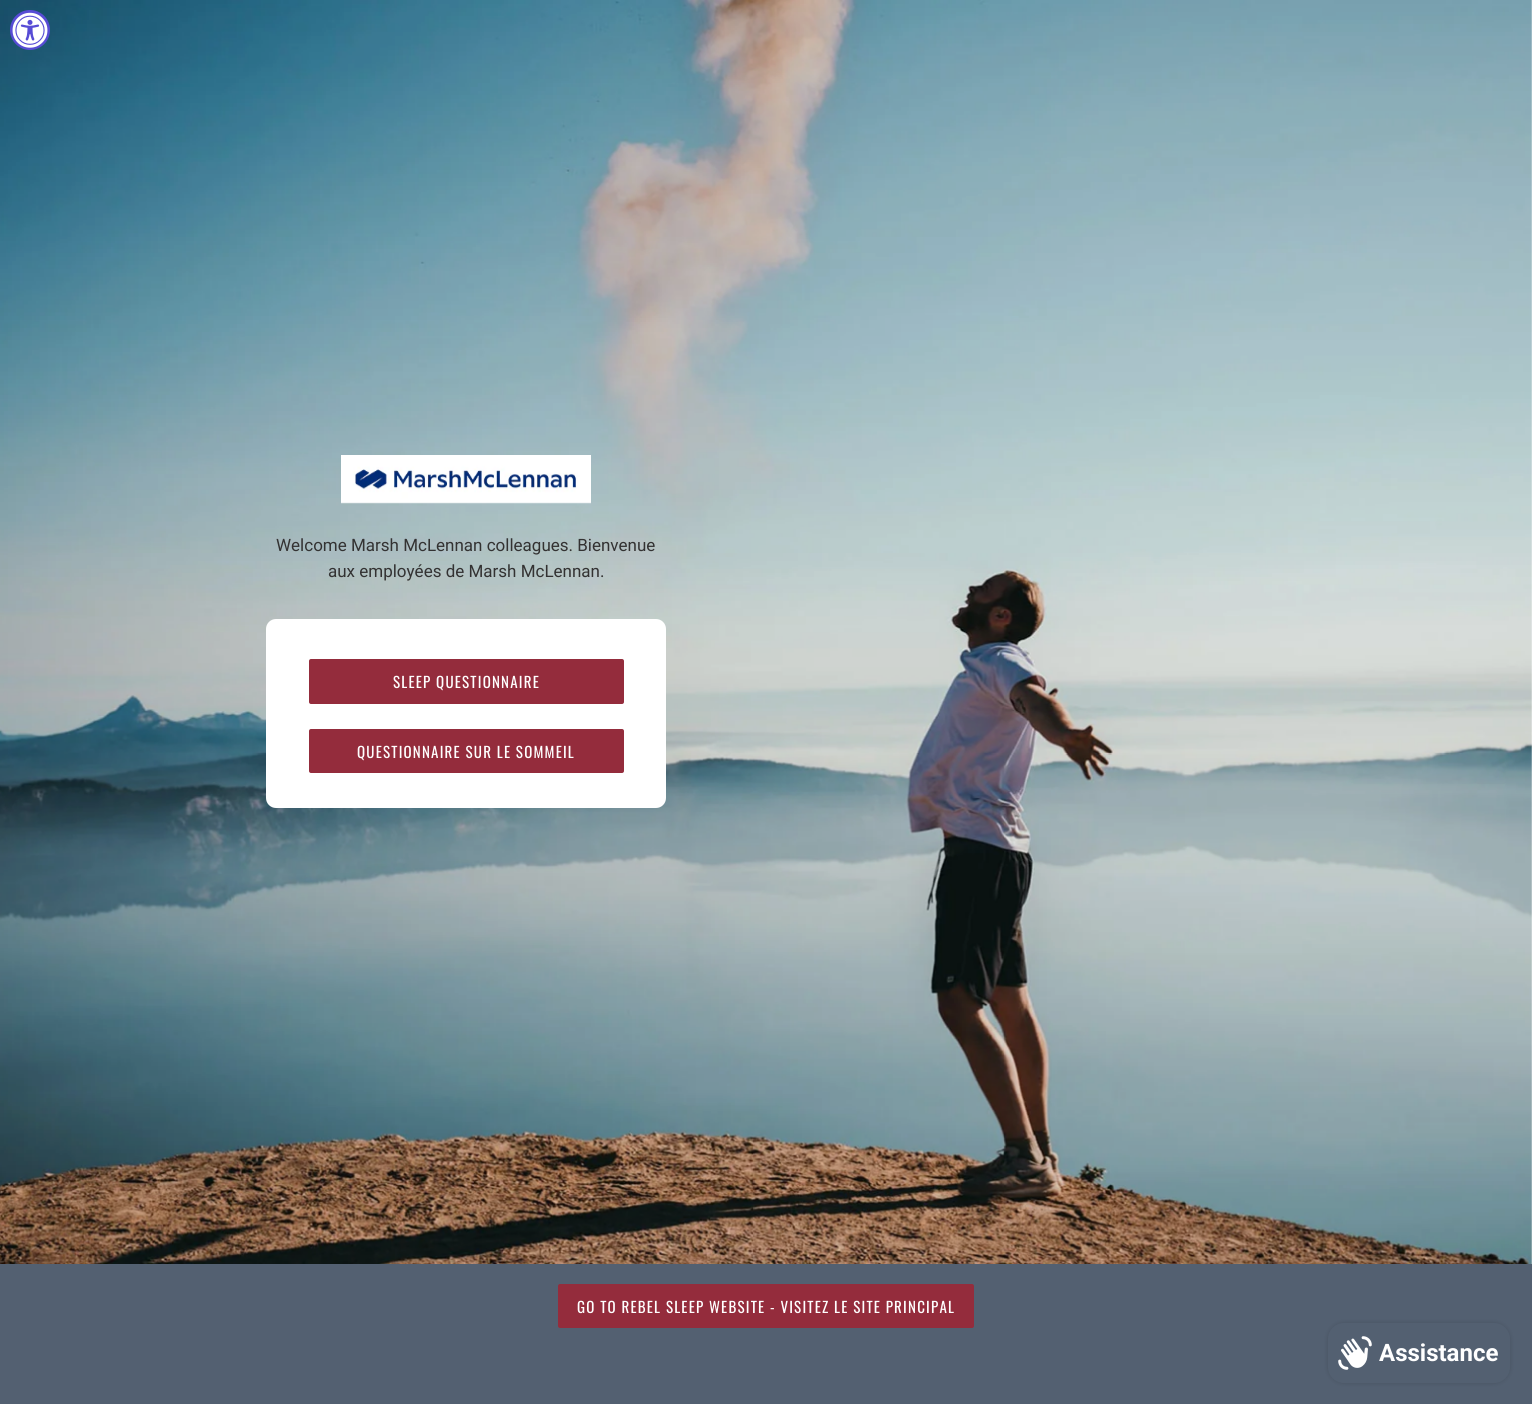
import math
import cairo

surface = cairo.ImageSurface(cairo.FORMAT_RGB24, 1532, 1404)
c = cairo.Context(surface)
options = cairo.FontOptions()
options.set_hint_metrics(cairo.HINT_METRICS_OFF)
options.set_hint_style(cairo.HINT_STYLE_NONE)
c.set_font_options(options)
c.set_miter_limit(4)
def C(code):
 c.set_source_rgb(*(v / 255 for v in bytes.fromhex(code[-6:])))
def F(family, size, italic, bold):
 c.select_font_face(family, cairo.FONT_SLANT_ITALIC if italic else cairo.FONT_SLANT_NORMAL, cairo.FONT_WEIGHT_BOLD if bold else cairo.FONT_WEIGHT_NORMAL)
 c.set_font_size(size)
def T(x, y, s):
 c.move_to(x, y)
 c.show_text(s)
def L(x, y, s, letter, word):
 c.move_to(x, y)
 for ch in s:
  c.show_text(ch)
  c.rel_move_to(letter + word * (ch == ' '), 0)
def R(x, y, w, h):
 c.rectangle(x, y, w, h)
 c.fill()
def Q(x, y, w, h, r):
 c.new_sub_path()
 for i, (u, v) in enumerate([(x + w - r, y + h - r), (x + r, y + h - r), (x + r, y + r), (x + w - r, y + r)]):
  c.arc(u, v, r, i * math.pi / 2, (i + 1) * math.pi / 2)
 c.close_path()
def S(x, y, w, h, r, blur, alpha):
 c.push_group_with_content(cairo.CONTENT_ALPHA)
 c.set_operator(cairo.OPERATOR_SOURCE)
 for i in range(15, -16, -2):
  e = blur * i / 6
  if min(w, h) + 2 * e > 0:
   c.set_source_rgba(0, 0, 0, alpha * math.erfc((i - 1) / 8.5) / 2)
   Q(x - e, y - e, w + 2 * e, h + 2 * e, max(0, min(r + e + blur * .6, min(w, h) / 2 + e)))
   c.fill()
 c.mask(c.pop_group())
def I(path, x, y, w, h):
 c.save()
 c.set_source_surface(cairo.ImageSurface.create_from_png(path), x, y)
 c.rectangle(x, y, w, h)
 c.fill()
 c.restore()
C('ffffff')
c.paint()
I('2.png',0,0,1532,1264)
C('574cd5')
c.arc(30,30,20,0,2 * math.pi)
c.fill()
I('1.png',12,12,36,36)
I('3.png',341,455,250,49)
F('Roboto',17,0,0)
C('333232')
T(276,551,'Welcome Marsh McLennan colleagues. Bienvenue')
T(328,577,'aux employées de Marsh McLennan.')
C('ffffff')
Q(266,619,400,189,10)
c.fill()
C('942c3c')
Q(309,659,315,45,2)
c.fill()
F('Oswald',15,0,0)
C('ffffff')
L(393,688,'SLEEP QUESTIONNAIRE',1.2,0)
C('942c3c')
Q(309,729,315,44,2)
c.fill()
C('ffffff')
L(357,758,'QUESTIONNAIRE SUR LE SOMMEIL',1.2,0)
C('536071')
R(0,1264,1532,140)
C('942c3c')
Q(558,1284,416,44,2)
c.fill()
C('ffffff')
L(577,1313,'GO TO REBEL SLEEP WEBSITE - VISITEZ LE SITE PRINCIPAL',1.2,0)
C('000000')
S(1328,1323,182,60,16,2.5,.15)
C('536071')
Q(1328,1323,182,60,16)
c.fill()
I('4.png',1338,1336,34,34)
F('Roboto',24,0,1)
C('ffffff')
T(1379,1361,'Assistance')
surface.write_to_png('o.png')
